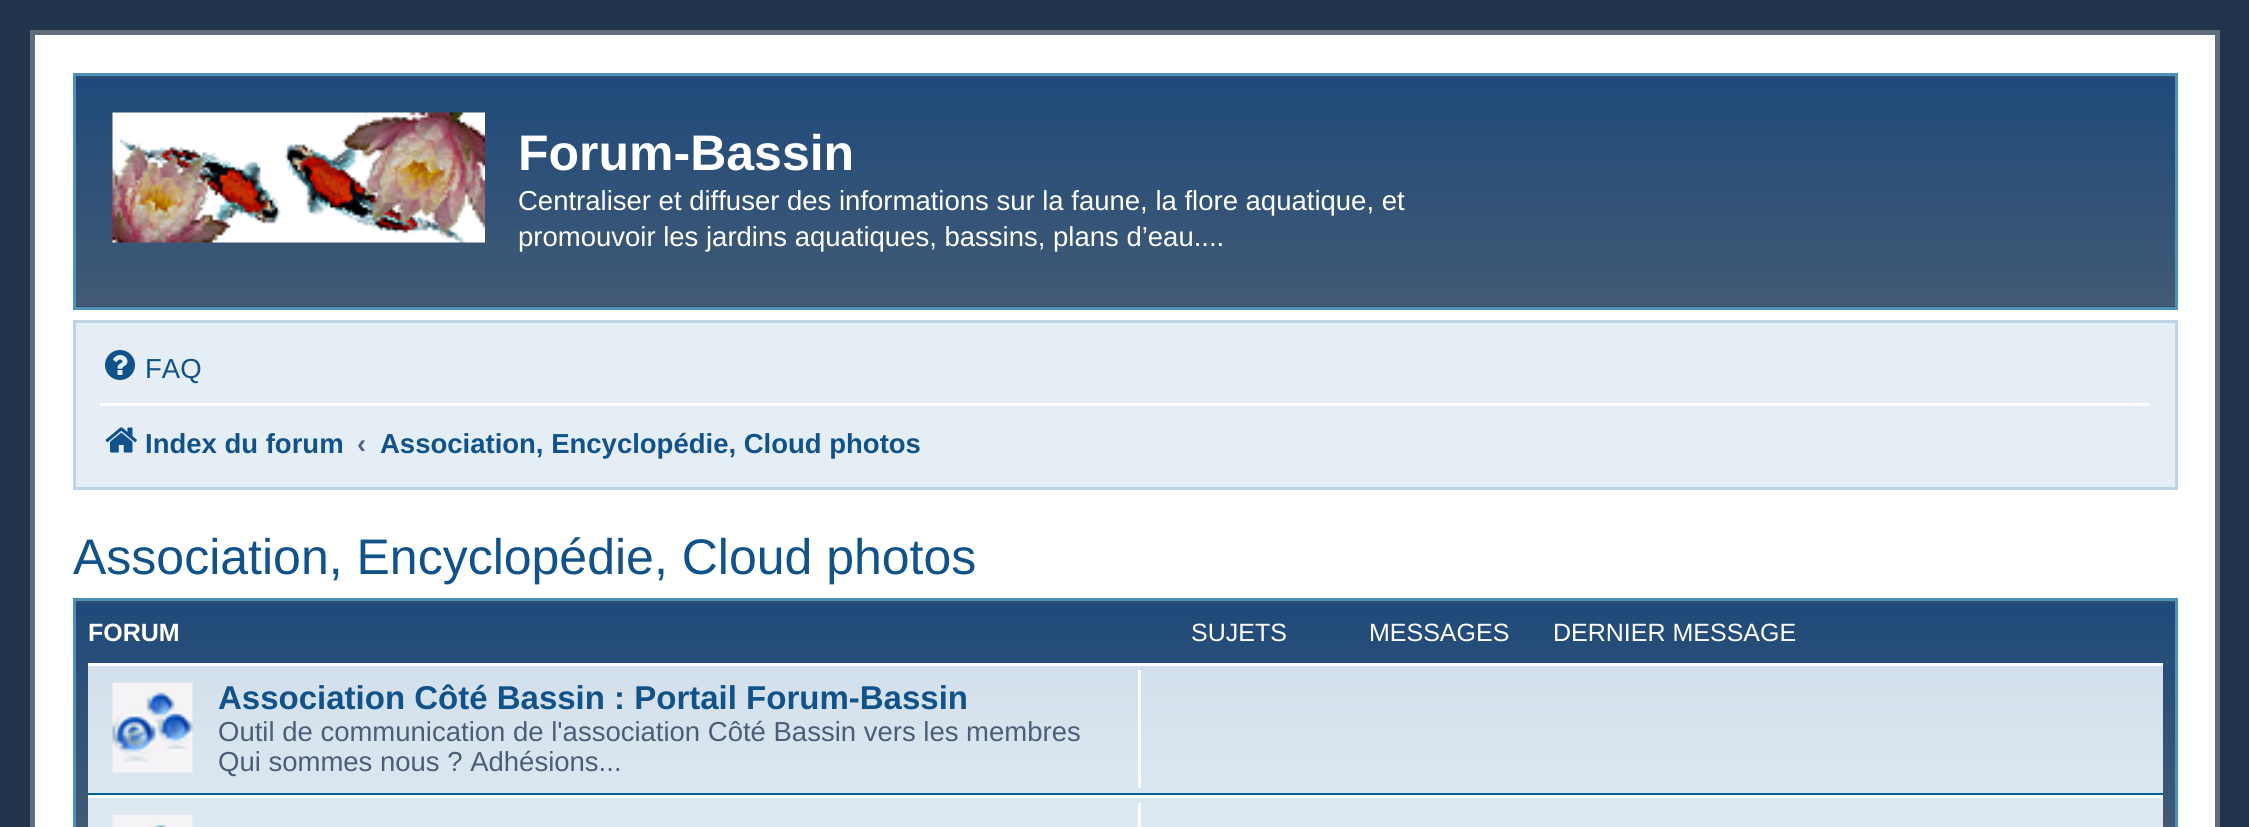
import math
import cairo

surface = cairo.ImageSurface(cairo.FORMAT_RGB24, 2249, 827)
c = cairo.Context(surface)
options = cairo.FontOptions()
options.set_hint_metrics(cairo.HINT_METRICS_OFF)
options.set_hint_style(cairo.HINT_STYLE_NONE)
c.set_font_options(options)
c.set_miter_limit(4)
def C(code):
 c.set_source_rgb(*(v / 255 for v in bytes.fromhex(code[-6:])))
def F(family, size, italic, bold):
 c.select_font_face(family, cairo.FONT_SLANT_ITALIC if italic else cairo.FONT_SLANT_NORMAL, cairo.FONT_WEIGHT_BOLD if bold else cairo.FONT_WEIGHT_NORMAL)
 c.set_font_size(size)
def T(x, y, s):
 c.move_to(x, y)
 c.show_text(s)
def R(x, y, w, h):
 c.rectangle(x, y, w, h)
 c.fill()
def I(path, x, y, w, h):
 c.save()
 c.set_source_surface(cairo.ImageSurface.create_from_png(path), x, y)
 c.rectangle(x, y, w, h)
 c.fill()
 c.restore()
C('20354c')
c.paint()
C('ffffff')
c.rectangle(32.5,32.5,2185,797)
c.fill_preserve()
C('606e7b')
c.set_line_width(5)
c.stroke()
gradient = cairo.LinearGradient(1125,75,1125,308)
gradient.add_color_stop_rgba(0,0.192,0.322,0.459,1)
gradient.add_color_stop_rgba(.02,0.122,0.29,0.478,1)
gradient.add_color_stop_rgba(.99,0.259,0.353,0.459,1)
gradient.add_color_stop_rgba(1,0.11,0.18,0.263,1)
c.set_source(gradient)
R(76,76,2099,231)
c.rectangle(74.5,74.5,2102,234)
C('4f91b6')
c.set_line_width(3)
c.stroke()
I('1.png',112,112,373,131)
F('Liberation Sans',50,0,1)
C('ffffff')
T(518,170,'Forum-Bassin')
F('Liberation Sans',27.5,0,0)
T(518,210,'Centraliser et diffuser des informations sur la faune, la flore aquatique, et')
T(518,246,'promouvoir les jardins aquatiques, bassins, plans d’eau....')
C('e5eef5')
c.rectangle(74.5,321.5,2102,167)
c.fill_preserve()
C('bcd4e3')
c.stroke()
I('2.png',105,350,30,30)
C('105289')
T(145,378,'FAQ')
C('ffffff')
R(100,403,2050,3)
I('3.png',105,427,32,26)
F('Liberation Sans',27.5,0,1)
C('105289')
T(145,453,'Index du forum')
C('536482')
T(357,453,'‹')
C('105289')
T(380,453,'Association, Encyclopédie, Cloud photos')
F('Liberation Sans',50,0,0)
T(73,574,'Association, Encyclopédie, Cloud photos')
gradient = cairo.LinearGradient(1125,600,1125,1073)
gradient.add_color_stop_rgba(0,0.192,0.322,0.459,1)
gradient.add_color_stop_rgba(.01,0.122,0.29,0.478,1)
gradient.add_color_stop_rgba(.49,0.259,0.353,0.459,1)
gradient.add_color_stop_rgba(1,0.11,0.18,0.263,1)
c.set_source(gradient)
R(76,601,2099,226)
c.rectangle(74.5,599.5,2102,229)
C('4f91b6')
c.stroke()
F('Liberation Sans',25,0,1)
C('ffffff')
T(88,641,'FORUM')
F('Liberation Sans',25,0,0)
T(1191,641,'SUJETS')
T(1369,641,'MESSAGES')
T(1553,641,'DERNIER MESSAGE')
gradient = cairo.LinearGradient(1125,662,1125,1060)
gradient.add_color_stop_rgba(0,0.824,0.878,0.922,1)
gradient.add_color_stop_rgba(1,0.933,0.961,0.976,1)
c.set_source(gradient)
R(88,666,2075,161)
C('ffffff')
R(88,663,2075,3)
C('00608f')
R(88,793,2075,2)
I('4.png',112,682,81,91)
F('Liberation Sans',33,0,1)
C('105289')
T(218,709,'Association Côté Bassin : Portail Forum-Bassin')
F('Liberation Sans',27.5,0,0)
C('4c5d77')
T(218,741,'Outil de communication de l\'association Côté Bassin vers les membres')
T(218,771,'Qui sommes nous ? Adhésions...')
C('ffffff')
R(1138,670,3,118)
R(88,795,2075,3)
I('5.png',112,815,81,12)
R(1138,803,3,24)
surface.write_to_png('o.png')
